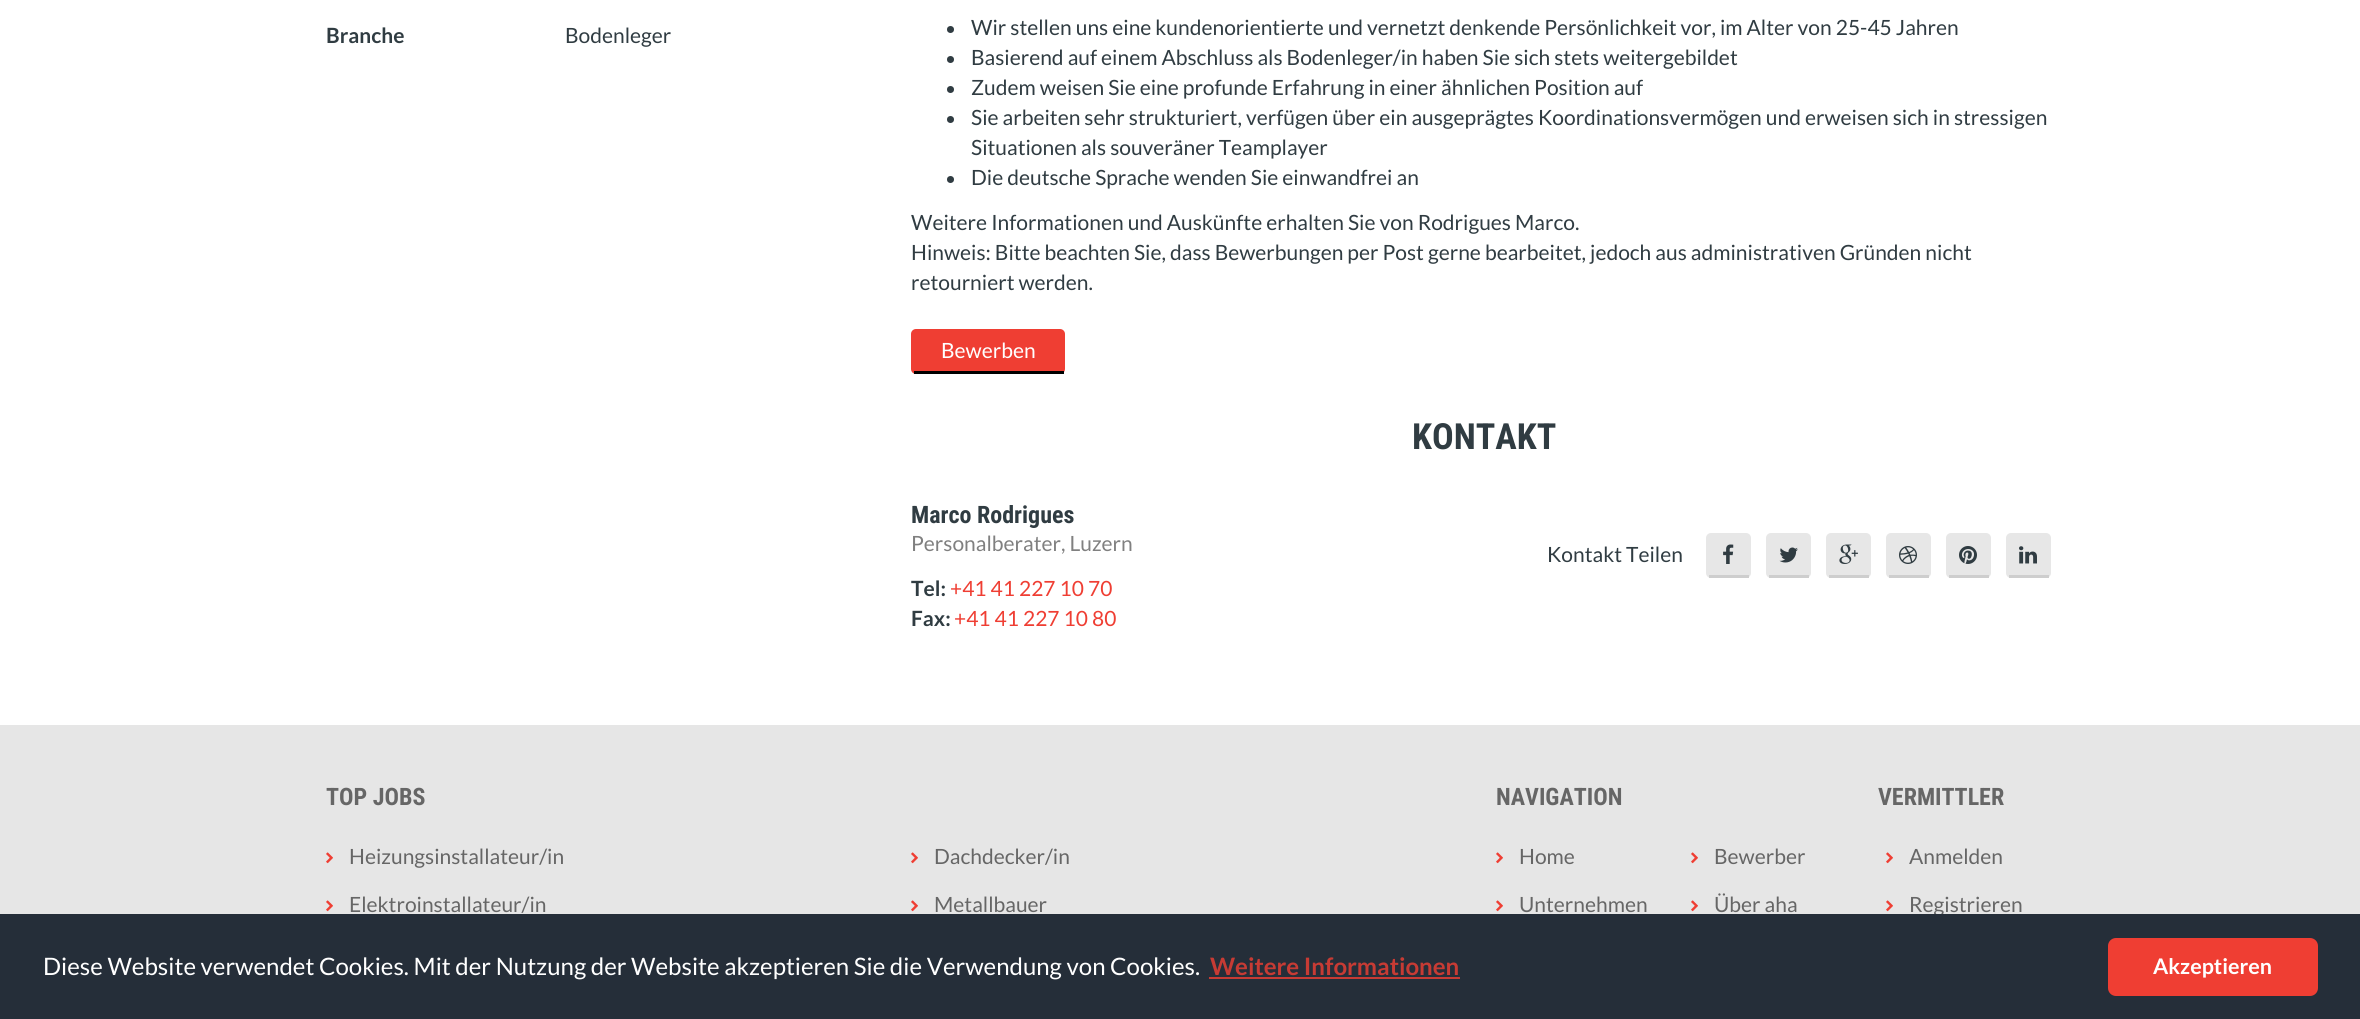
import math
import cairo

surface = cairo.ImageSurface(cairo.FORMAT_RGB24, 2360, 1019)
c = cairo.Context(surface)
options = cairo.FontOptions()
options.set_hint_metrics(cairo.HINT_METRICS_OFF)
options.set_hint_style(cairo.HINT_STYLE_NONE)
c.set_font_options(options)
c.set_miter_limit(4)
def C(code):
 c.set_source_rgb(*(v / 255 for v in bytes.fromhex(code[-6:])))
def F(family, size, italic, bold):
 c.select_font_face(family, cairo.FONT_SLANT_ITALIC if italic else cairo.FONT_SLANT_NORMAL, cairo.FONT_WEIGHT_BOLD if bold else cairo.FONT_WEIGHT_NORMAL)
 c.set_font_size(size)
def T(x, y, s):
 c.move_to(x, y)
 c.show_text(s)
def R(x, y, w, h):
 c.rectangle(x, y, w, h)
 c.fill()
def Q(x, y, w, h, r):
 c.new_sub_path()
 for i, (u, v) in enumerate([(x + w - r, y + h - r), (x + r, y + h - r), (x + r, y + r), (x + w - r, y + r)]):
  c.arc(u, v, r, i * math.pi / 2, (i + 1) * math.pi / 2)
 c.close_path()
def I(path, x, y, w, h):
 c.save()
 c.set_source_surface(cairo.ImageSurface.create_from_png(path), x, y)
 c.rectangle(x, y, w, h)
 c.fill()
 c.restore()
C('ffffff')
c.paint()
F('Lato',21,0,1)
C('303c42')
T(326,43,'Branche')
F('Lato',21,0,0)
T(565,43,'Bodenleger')
c.new_path()
c.arc(950.5,29.5,3.5,0,2 * math.pi)
c.fill()
T(971,35,'Wir stellen uns eine kundenorientierte und vernetzt denkende Persönlichkeit vor, im Alter von 25-45 Jahren')
c.new_path()
c.arc(950.5,59.5,3.5,0,2 * math.pi)
c.fill()
T(971,65,'Basierend auf einem Abschluss als Bodenleger/in haben Sie sich stets weitergebildet')
c.new_path()
c.arc(950.5,89.5,3.5,0,2 * math.pi)
c.fill()
T(971,95,'Zudem weisen Sie eine profunde Erfahrung in einer ähnlichen Position auf')
c.new_path()
c.arc(950.5,119.5,3.5,0,2 * math.pi)
c.fill()
T(971,125,'Sie arbeiten sehr strukturiert, verfügen über ein ausgeprägtes Koordinationsvermögen und erweisen sich in stressigen')
T(971,155,'Situationen als souveräner Teamplayer')
c.new_path()
c.arc(950.5,179.5,3.5,0,2 * math.pi)
c.fill()
T(971,185,'Die deutsche Sprache wenden Sie einwandfrei an')
T(911,230,'Weitere Informationen und Auskünfte erhalten Sie von Rodrigues Marco.')
T(911,260,'Hinweis: Bitte beachten Sie, dass Bewerbungen per Post gerne bearbeitet, jedoch aus administrativen Gründen nicht')
T(911,290,'retourniert werden.')
C('ef3e33')
Q(911,329,154,45,5)
c.fill()
C('000000')
R(914,371,150,3)
C('ffffff')
T(941,358,'Bewerben')
F('Roboto Condensed',36,0,1)
C('303c42')
T(1412,449,'KONTAKT')
F('Roboto Condensed',24,0,1)
T(911,523,'Marco Rodrigues')
F('Lato',21,0,0)
C('808080')
T(911,551,'Personalberater, Luzern')
C('303c42')
T(1547,562,'Kontakt Teilen')
C('e7e7e7')
Q(1706,533,45,45,5)
c.fill()
C('cecece')
R(1709,575,40,3)
I('1.png',1723,544,11,20)
C('e7e7e7')
Q(1766,533,45,45,5)
c.fill()
C('cecece')
R(1769,575,40,3)
I('2.png',1779,547,19,16)
C('e7e7e7')
Q(1826,533,45,45,5)
c.fill()
C('cecece')
R(1829,575,40,3)
I('3.png',1839,544,19,20)
C('e7e7e7')
Q(1886,533,45,45,5)
c.fill()
C('cecece')
R(1889,575,40,3)
I('4.png',1899,546,18,18)
C('e7e7e7')
Q(1946,533,45,45,5)
c.fill()
C('cecece')
R(1949,575,40,3)
I('5.png',1959,546,18,18)
C('e7e7e7')
Q(2006,533,45,45,5)
c.fill()
C('cecece')
R(2009,575,40,3)
I('6.png',2019,546,18,18)
F('Lato',21,0,1)
C('303c42')
T(911,596,'Tel:')
F('Lato',21,0,0)
C('ef3e33')
T(950,596,'+41 41 227 10 70')
F('Lato',21,0,1)
C('303c42')
T(911,626,'Fax:')
F('Lato',21,0,0)
C('ef3e33')
T(954,626,'+41 41 227 10 80')
C('e6e6e6')
R(0,725,2360,189)
F('Roboto Condensed',24,0,1)
C('666666')
T(326,805,'TOP JOBS')
I('7.png',326,852,7,12)
F('Lato',21,0,0)
T(349,864,'Heizungsinstallateur/in')
I('7.png',326,900,7,12)
T(349,912,'Elektroinstallateur/in')
I('7.png',911,852,7,12)
T(934,864,'Dachdecker/in')
I('7.png',911,900,7,12)
T(934,912,'Metallbauer')
F('Roboto Condensed',24,0,1)
T(1496,805,'NAVIGATION')
T(1878,805,'VERMITTLER')
I('7.png',1496,852,7,12)
F('Lato',21,0,0)
T(1519,864,'Home')
I('7.png',1496,900,7,12)
T(1519,912,'Unternehmen')
I('7.png',1691,852,7,12)
T(1714,864,'Bewerber')
I('7.png',1691,900,7,12)
T(1714,912,'Über aha')
I('7.png',1886,852,7,12)
T(1909,864,'Anmelden')
I('7.png',1886,900,7,12)
T(1909,912,'Registrieren')
C('252e39')
R(0,914,2360,105)
F('Lato',24,0,0)
C('ffffff')
T(43,975,'Diese Website verwendet Cookies. Mit der Nutzung der Website akzeptieren Sie die Verwendung von Cookies.')
F('Lato',24,0,1)
C('c73b34')
T(1210,975,'Weitere Informationen')
R(1209,977,251,2)
C('ef3e33')
Q(2108,938,210,58,8)
c.fill()
F('Lato',21.5,0,1)
C('ffffff')
T(2153,974,'Akzeptieren')
surface.write_to_png('o.png')
